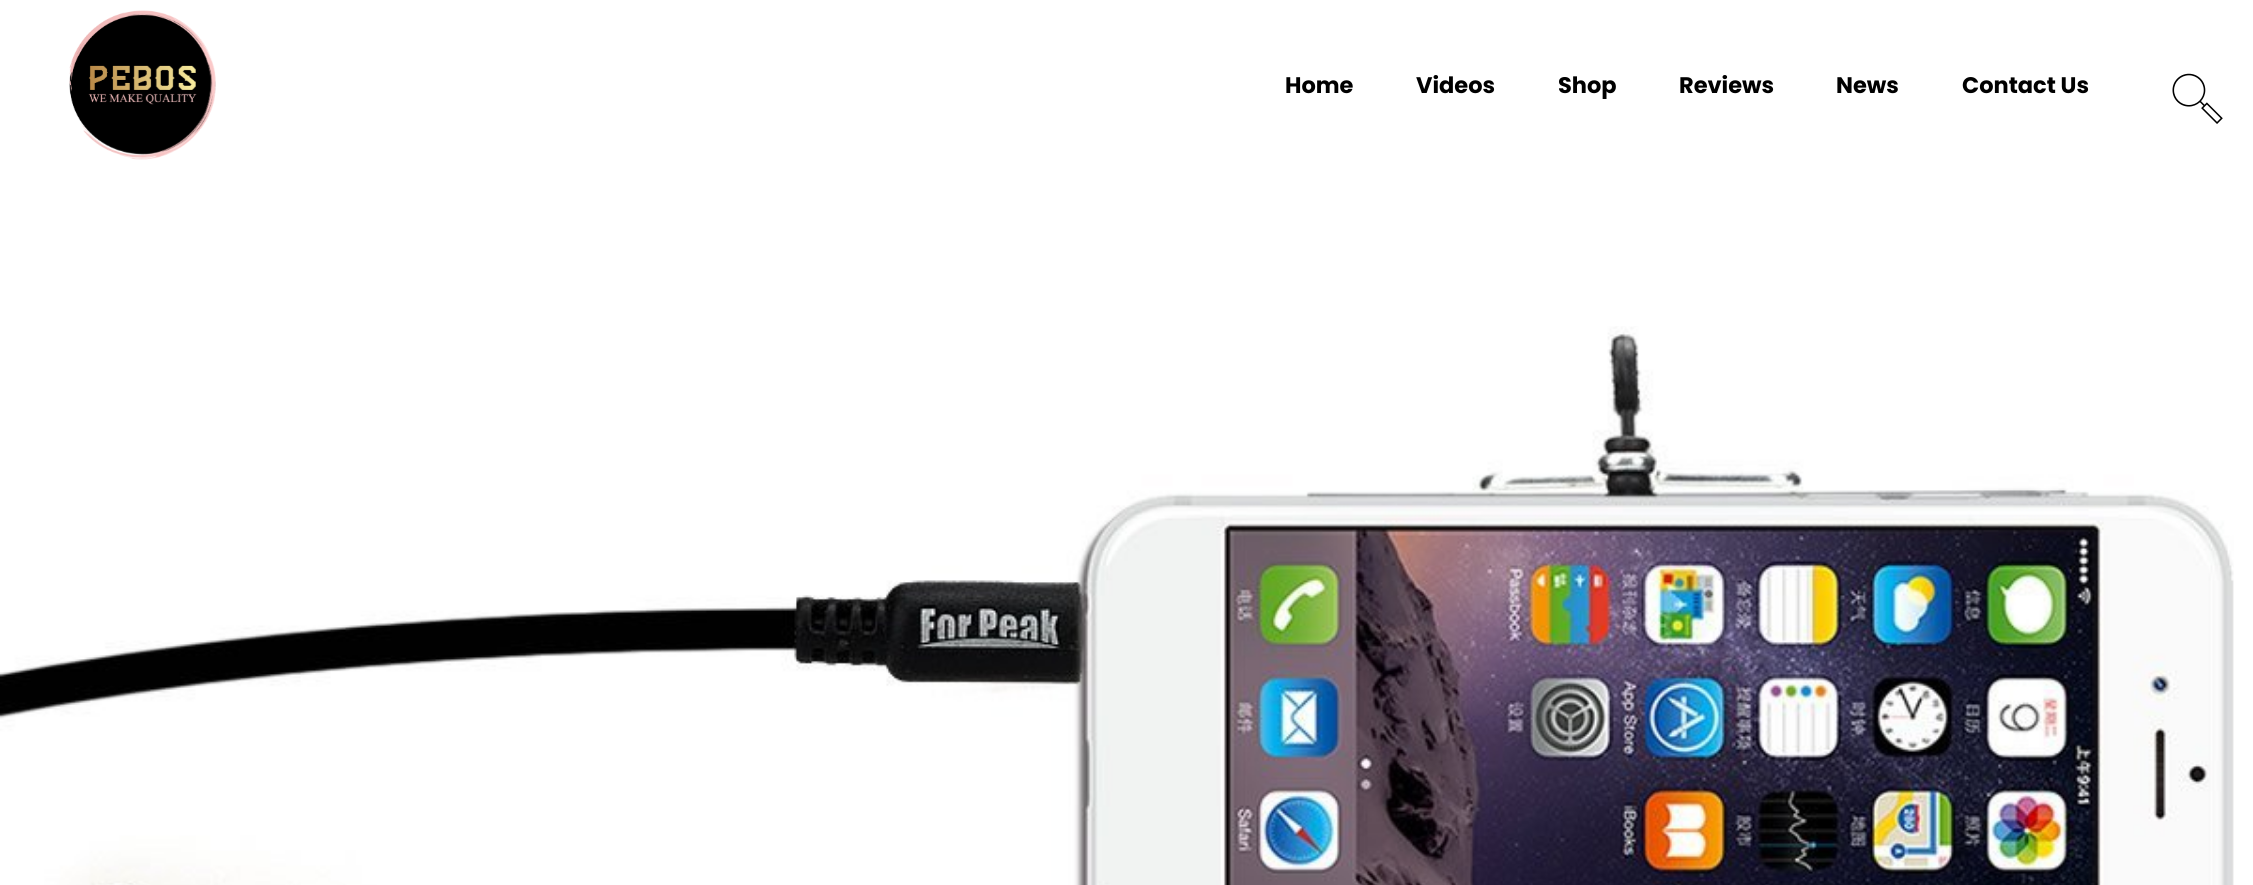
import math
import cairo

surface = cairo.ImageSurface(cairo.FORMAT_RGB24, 2253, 885)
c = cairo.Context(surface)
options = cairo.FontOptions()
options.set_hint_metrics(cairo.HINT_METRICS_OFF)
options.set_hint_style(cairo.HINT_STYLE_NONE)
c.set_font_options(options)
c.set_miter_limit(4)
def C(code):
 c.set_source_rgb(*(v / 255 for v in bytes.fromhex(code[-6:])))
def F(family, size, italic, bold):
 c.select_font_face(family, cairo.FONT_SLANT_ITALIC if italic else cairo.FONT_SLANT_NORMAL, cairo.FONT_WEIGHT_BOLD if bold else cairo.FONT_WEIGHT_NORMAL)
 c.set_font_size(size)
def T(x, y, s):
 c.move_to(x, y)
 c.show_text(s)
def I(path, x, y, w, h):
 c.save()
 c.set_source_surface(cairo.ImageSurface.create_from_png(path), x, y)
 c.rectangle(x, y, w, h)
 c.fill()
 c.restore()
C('ffffff')
c.paint()
I('1.png',69,10,147,150)
F('Poppins',22.5,0,1)
C('000000')
T(1285,93,'Home')
T(1416,93,'Videos')
T(1558,93,'Shop')
T(1679,93,'Reviews')
T(1836,93,'News')
T(1962,93,'Contact Us')
I('2.png',2172,73,51,51)
I('3.png',0,326,2234,559)
surface.write_to_png('o.png')
